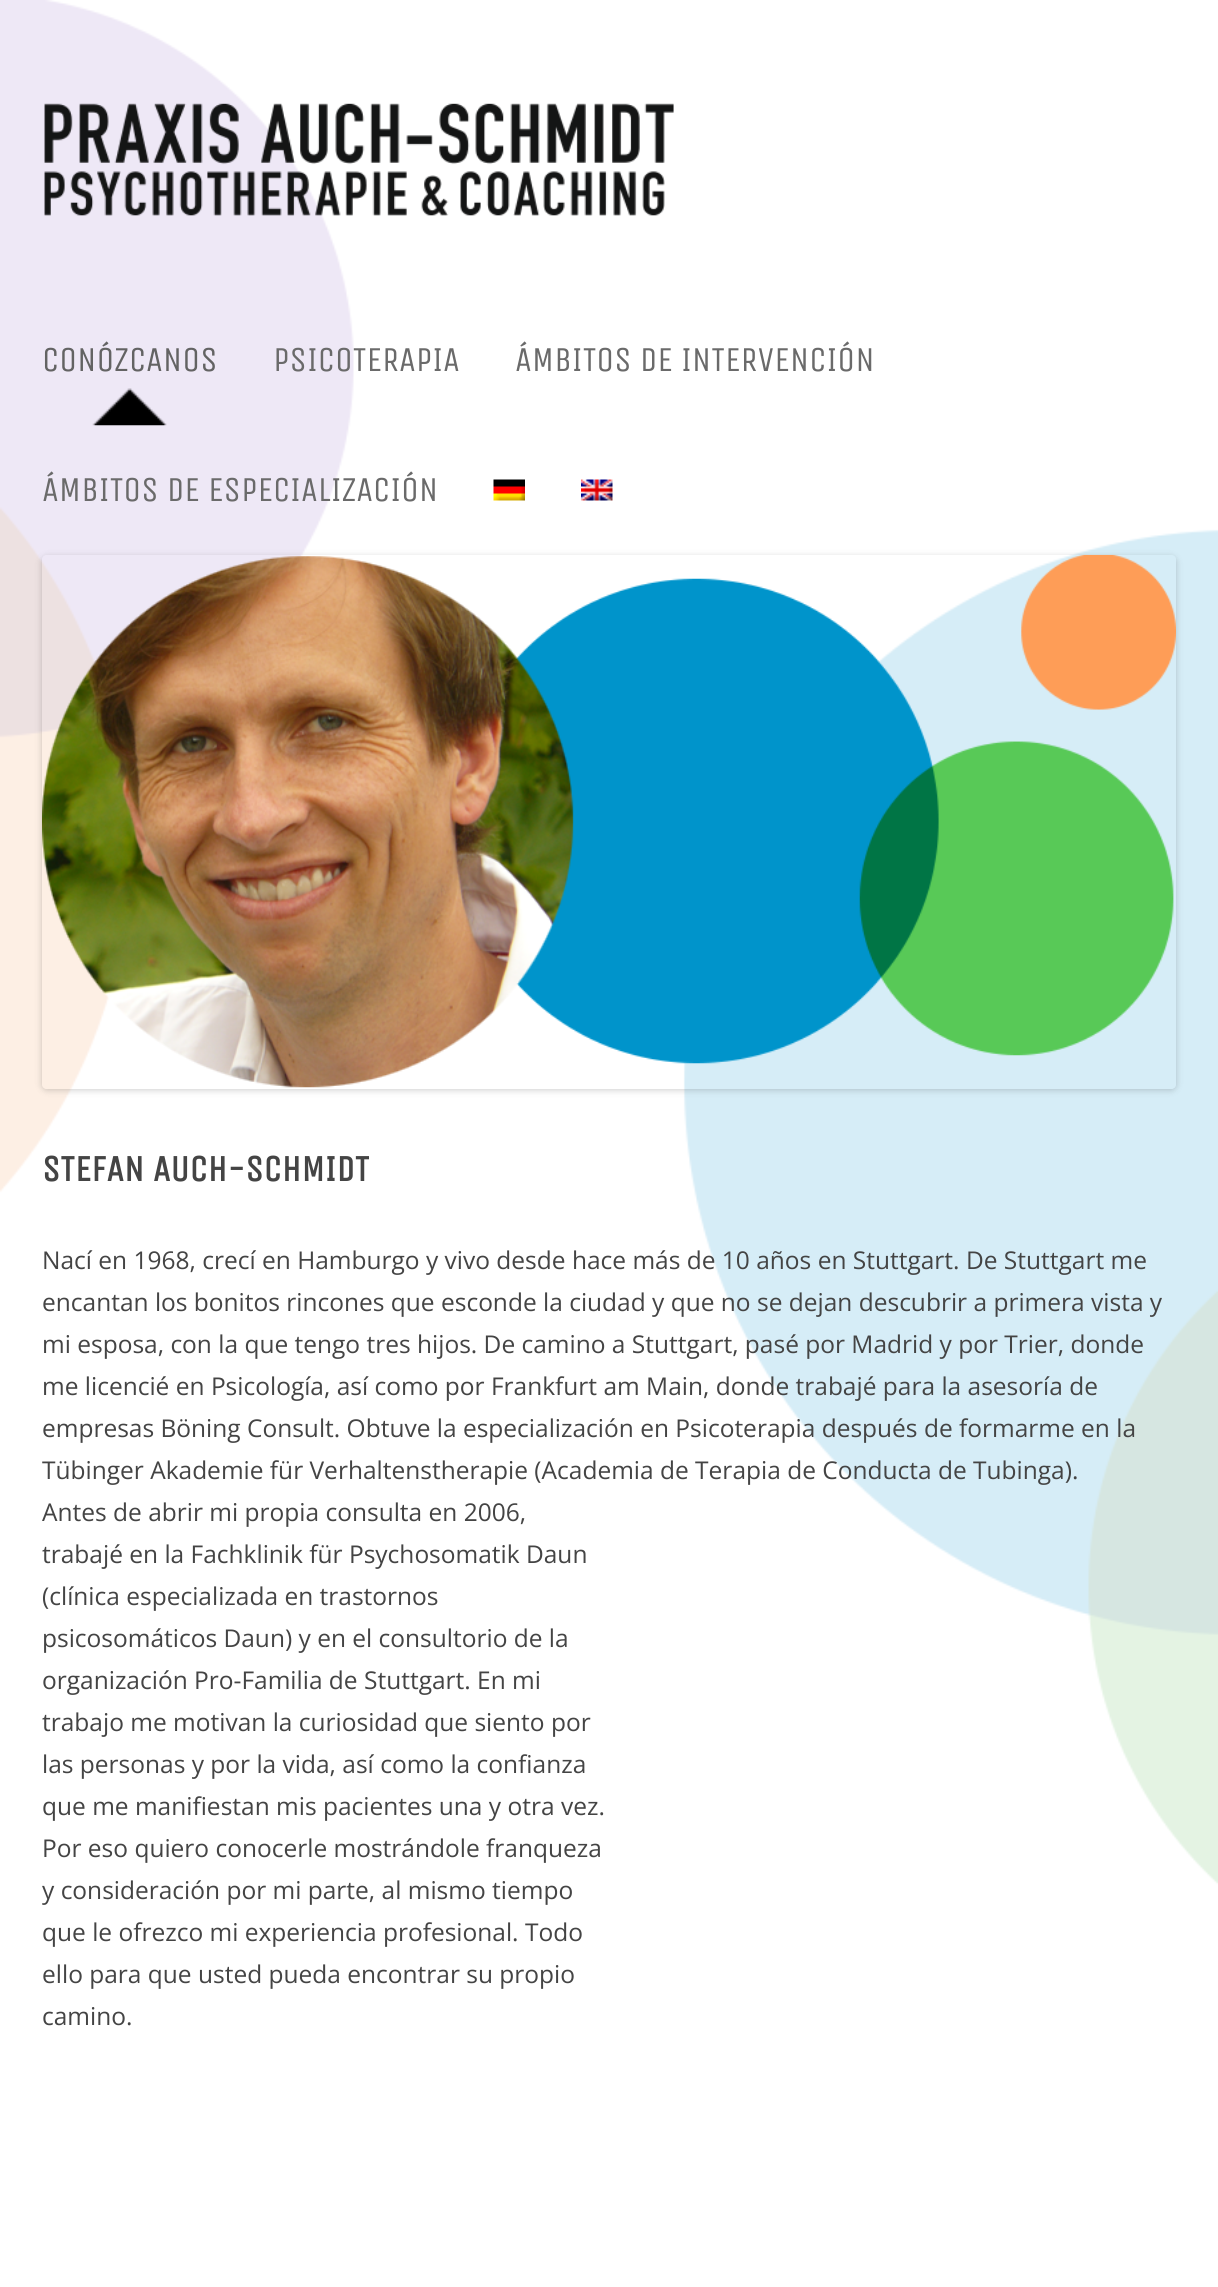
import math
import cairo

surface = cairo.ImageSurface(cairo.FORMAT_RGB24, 1218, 2287)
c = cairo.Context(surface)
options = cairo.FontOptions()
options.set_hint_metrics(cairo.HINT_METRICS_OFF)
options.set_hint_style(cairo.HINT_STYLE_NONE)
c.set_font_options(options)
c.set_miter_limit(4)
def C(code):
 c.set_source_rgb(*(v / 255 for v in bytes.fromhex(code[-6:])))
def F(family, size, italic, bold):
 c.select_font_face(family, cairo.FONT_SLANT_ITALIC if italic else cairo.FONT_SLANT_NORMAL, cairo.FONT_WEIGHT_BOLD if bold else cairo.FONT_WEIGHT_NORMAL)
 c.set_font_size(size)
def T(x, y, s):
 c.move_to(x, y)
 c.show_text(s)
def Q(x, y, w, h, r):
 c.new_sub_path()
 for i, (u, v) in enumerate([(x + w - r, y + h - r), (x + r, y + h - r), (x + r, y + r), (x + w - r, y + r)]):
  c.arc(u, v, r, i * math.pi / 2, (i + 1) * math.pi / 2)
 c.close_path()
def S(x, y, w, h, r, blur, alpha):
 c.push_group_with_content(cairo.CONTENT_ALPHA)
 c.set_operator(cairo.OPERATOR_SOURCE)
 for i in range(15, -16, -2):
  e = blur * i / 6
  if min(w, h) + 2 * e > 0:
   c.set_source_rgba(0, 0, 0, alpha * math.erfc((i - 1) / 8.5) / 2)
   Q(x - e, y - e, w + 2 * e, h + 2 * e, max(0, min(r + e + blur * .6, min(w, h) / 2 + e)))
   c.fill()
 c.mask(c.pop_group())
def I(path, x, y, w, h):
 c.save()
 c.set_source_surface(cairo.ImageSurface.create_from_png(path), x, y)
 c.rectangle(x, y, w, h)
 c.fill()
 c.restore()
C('ffffff')
c.paint()
I('1.png',0,0,1218,1885)
I('2.png',44,103,630,113)
I('3.png',92,388,75,38)
F('Unica One',35,0,0)
C('636363')
T(42,371,'CONÓZCANOS')
C('6a6a6a')
T(273,371,'PSICOTERAPIA')
T(515,371,'ÁMBITOS DE INTERVENCIÓN')
T(42,501,'ÁMBITOS DE ESPECIALIZACIÓN')
I('4.png',493,479,32,22)
I('5.png',581,479,32,22)
c.save()
c.set_fill_rule(cairo.FILL_RULE_EVEN_ODD)
c.new_path()
c.move_to(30,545)
c.line_to(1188,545)
c.line_to(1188,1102)
c.line_to(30,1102)
c.close_path()
c.move_to(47,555)
c.line_to(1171,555)
c.curve_to(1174,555,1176,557,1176,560)
c.line_to(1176,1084)
c.curve_to(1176,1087,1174,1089,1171,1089)
c.line_to(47,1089)
c.curve_to(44,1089,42,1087,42,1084)
c.line_to(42,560)
c.curve_to(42,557,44,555,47,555)
c.close_path()
c.clip()
C('000000')
S(42,557,1134,533,5,3.5,.2)
c.restore()
I('6.png',42,554,1134,534)
F('Unica One',36.75,0,1)
C('444444')
T(42,1181,'STEFAN AUCH-SCHMIDT')
F('Open Sans',24.5,0,0)
T(42,1269,'Nací en 1968, crecí en Hamburgo y vivo desde hace más de 10 años en Stuttgart. De Stuttgart me')
T(42,1311,'encantan los bonitos rincones que esconde la ciudad y que no se dejan descubrir a primera vista y')
T(42,1353,'mi esposa, con la que tengo tres hijos. De camino a Stuttgart, pasé por Madrid y por Trier, donde')
T(42,1395,'me licencié en Psicología, así como por Frankfurt am Main, donde trabajé para la asesoría de')
T(42,1437,'empresas Böning Consult. Obtuve la especialización en Psicoterapia después de formarme en la')
T(42,1479,'Tübinger Akademie für Verhaltenstherapie (Academia de Terapia de Conducta de Tubinga).')
T(42,1521,'Antes de abrir mi propia consulta en 2006,')
T(42,1563,'trabajé en la Fachklinik für Psychosomatik Daun')
T(42,1605,'(clínica especializada en trastornos')
T(42,1647,'psicosomáticos Daun) y en el consultorio de la')
T(42,1689,'organización Pro-Familia de Stuttgart. En mi')
T(42,1731,'trabajo me motivan la curiosidad que siento por')
T(42,1773,'las personas y por la vida, así como la confianza')
T(42,1815,'que me manifiestan mis pacientes una y otra vez.')
T(42,1857,'Por eso quiero conocerle mostrándole franqueza')
T(42,1899,'y consideración por mi parte, al mismo tiempo')
T(42,1941,'que le ofrezco mi experiencia profesional. Todo')
T(42,1983,'ello para que usted pueda encontrar su propio')
T(42,2025,'camino.')
surface.write_to_png('o.png')
